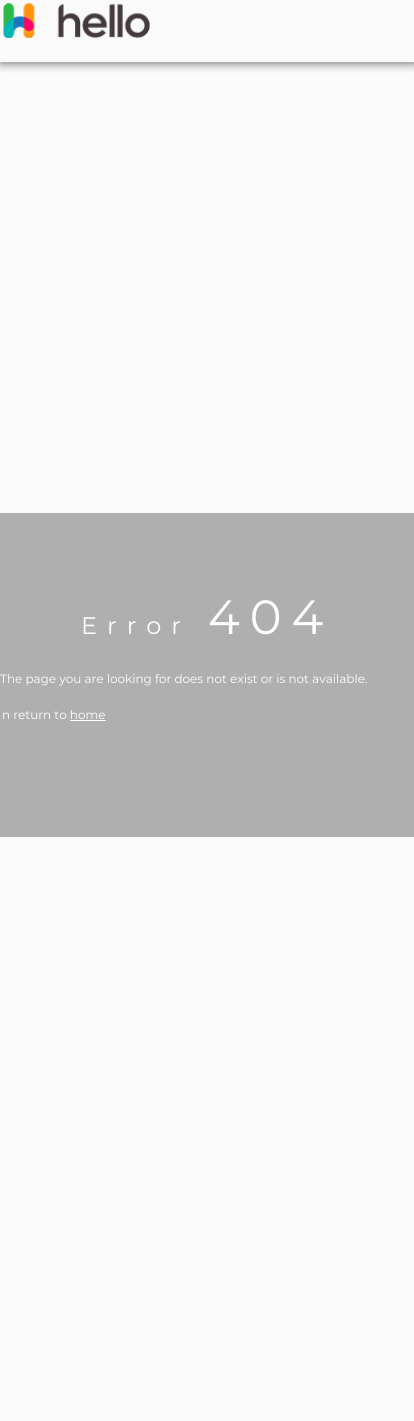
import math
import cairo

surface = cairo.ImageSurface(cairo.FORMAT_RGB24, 414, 1421)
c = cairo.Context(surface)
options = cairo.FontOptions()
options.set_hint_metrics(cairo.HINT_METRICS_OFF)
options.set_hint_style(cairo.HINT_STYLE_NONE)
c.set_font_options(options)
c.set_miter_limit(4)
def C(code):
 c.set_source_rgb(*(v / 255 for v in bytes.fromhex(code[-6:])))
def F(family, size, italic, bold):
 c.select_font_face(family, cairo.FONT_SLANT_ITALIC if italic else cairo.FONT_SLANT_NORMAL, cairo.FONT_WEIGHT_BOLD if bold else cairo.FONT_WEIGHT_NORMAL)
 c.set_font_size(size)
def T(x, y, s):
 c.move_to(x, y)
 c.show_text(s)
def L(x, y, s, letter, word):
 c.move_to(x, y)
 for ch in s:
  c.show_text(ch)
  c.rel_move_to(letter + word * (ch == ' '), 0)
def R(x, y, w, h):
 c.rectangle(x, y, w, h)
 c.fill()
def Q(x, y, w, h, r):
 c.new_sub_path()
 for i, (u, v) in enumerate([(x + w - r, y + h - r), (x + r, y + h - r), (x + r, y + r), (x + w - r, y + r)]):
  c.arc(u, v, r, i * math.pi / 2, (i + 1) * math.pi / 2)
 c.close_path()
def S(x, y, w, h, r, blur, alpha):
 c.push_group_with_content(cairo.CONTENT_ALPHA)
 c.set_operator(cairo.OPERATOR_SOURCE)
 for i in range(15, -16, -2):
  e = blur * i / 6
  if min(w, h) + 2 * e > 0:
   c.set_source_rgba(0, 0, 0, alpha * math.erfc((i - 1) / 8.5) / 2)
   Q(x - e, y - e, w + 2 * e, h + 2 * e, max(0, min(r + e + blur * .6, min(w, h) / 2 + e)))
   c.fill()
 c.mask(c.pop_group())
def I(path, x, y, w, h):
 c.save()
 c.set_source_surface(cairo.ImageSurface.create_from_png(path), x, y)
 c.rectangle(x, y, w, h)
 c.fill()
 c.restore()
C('fafafa')
c.paint()
c.save()
c.rectangle(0,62,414,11)
c.clip()
C('666666')
S(1,1,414,62,0,5,1)
c.restore()
I('1.png',3,3,147,35)
C('afafaf')
R(0,513,414,324)
F('Montserrat',24,0,0)
C('ffffff')
L(81,634,'Error',10,0)
F('Montserrat',48,0,0)
L(208,634,'404',10,0)
F('Montserrat',12,0,0)
T(0,683,'The page you are looking for does not exist or is not available.')
T(2,719,'n return to home')
R(70,720,36,1)
surface.write_to_png('o.png')
